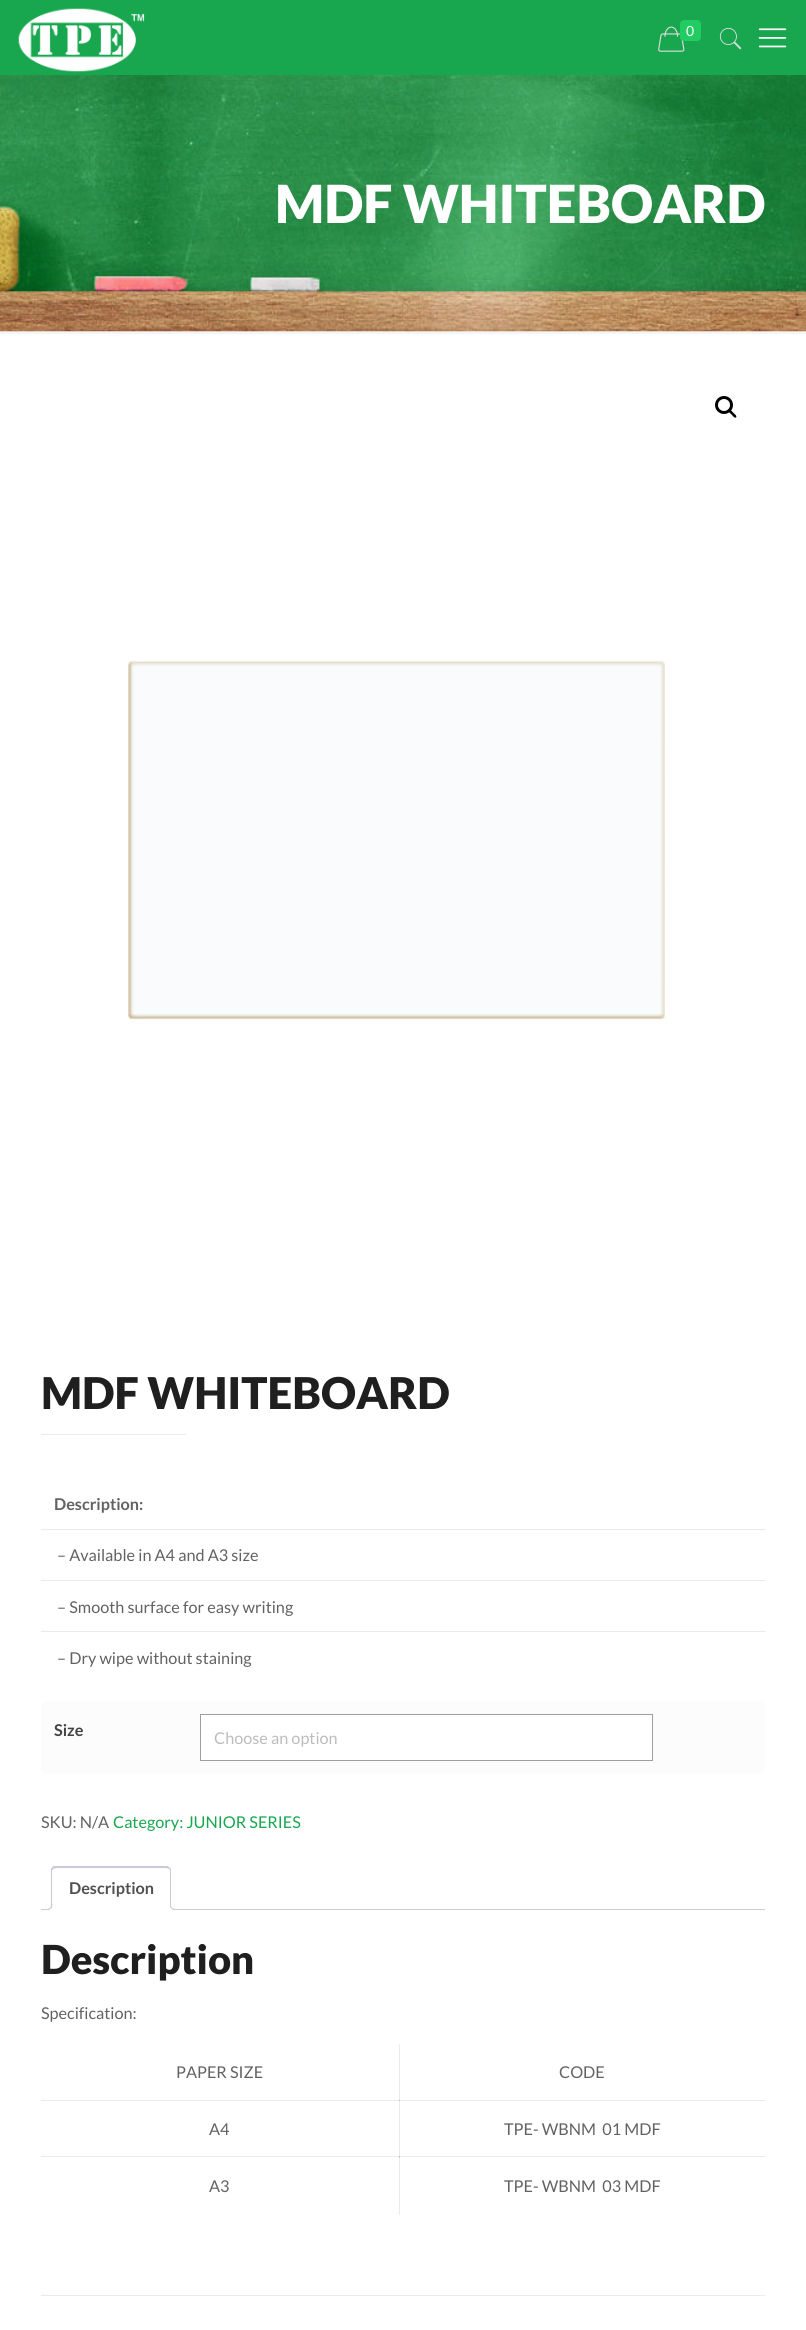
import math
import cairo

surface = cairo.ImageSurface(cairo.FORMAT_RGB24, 806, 2330)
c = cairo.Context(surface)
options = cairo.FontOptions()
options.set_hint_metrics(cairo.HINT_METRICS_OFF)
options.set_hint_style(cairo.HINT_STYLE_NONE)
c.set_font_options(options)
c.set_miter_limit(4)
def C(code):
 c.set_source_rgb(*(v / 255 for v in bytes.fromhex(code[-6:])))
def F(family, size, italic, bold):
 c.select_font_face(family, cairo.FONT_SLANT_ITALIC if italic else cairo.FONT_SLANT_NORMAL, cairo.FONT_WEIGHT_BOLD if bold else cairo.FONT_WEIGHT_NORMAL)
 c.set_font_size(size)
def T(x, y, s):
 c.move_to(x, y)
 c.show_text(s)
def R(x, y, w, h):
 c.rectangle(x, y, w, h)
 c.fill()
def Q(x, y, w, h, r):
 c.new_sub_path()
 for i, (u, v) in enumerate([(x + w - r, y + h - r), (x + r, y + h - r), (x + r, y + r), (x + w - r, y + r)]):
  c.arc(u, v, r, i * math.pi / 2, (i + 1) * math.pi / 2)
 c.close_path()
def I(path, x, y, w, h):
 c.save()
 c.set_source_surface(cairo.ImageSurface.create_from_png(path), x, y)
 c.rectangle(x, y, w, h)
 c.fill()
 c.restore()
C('ffffff')
c.paint()
C('ebebeb')
R(41,2100,359,1)
R(399,2044,1,57)
R(399,2100,367,1)
R(41,2156,359,1)
R(399,2100,1,58)
C('b7b7b7')
R(399,2100,1,1)
C('ebebeb')
R(399,2156,367,1)
I('1.png',0,75,806,257)
C('18a74f')
R(0,0,806,75)
I('2.png',18,8,127,64)
I('3.png',758,28,29,20)
I('4.png',658,26,27,26)
C('22cc63')
Q(680,20,21,21,4)
c.fill()
F('Lato',14,0,0)
C('ffffff')
T(686,36,'0')
I('5.png',719,27,23,23)
F('Lato Black',52.5,0,0)
T(275,223,'MDF WHITEBOARD')
c.set_source_rgba(0,0,0,0.04)
R(0,331,806,3)
c.new_path()
c.arc(724,405,7.5,0,2 * math.pi)
C('000000')
c.set_line_width(3)
c.stroke()
c.new_path()
c.move_to(729,410)
c.curve_to(730.5,409,732.5,412,733.5,413)
c.curve_to(734,413.5,737.5,416,736,417.5)
c.curve_to(734.5,418.5,732.5,415.5,731.5,414.5)
c.curve_to(731,414,727.5,411.5,729,410)
c.close_path()
c.fill()
I('6.png',128,660,540,365)
F('Lato Black',43.75,0,0)
C('1f1f1f')
T(41,1409,'MDF WHITEBOARD')
C('ebebeb')
R(41,1434,145,1)
R(41,1529,725,1)
F('Lato',16.25,0,1)
C('626262')
T(54,1510,'Description:')
C('ebebeb')
R(41,1580,725,1)
F('Lato',16.25,0,0)
C('626262')
T(57,1561,'– Available in A4 and A3 size')
C('ebebeb')
R(41,1631,725,1)
C('626262')
T(57,1613,'– Smooth surface for easy writing')
T(57,1664,'– Dry wipe without staining')
C('fcfcfc')
Q(41,1701,724,73,6)
c.fill()
F('Lato',16.25,0,1)
C('444444')
T(54,1736,'Size')
C('ffffff')
c.rectangle(200.5,1714.5,452,46)
c.fill_preserve()
C('9f9f9f')
c.set_line_width(1)
c.stroke()
F('Lato',16.25,0,0)
C('bcbcbc')
T(214,1744,'Choose an option')
C('626262')
T(41,1828,'SKU: N/A')
C('18a74f')
T(113,1828,'Category: JUNIOR SERIES')
C('cfc8d8')
R(41,1909,724,1)
C('ffffff')
c.new_path()
c.move_to(56,1866)
c.line_to(166,1866)
c.curve_to(169,1866,171,1868,171,1871)
c.line_to(171,1910)
c.line_to(51,1910)
c.line_to(51,1871)
c.curve_to(51,1868,53,1866,56,1866)
c.close_path()
c.fill()
c.save()
c.rectangle(41,1866,724,44)
c.clip()
C('cfc8d8')
c.new_path()
c.move_to(56,1868)
c.line_to(54,1869)
c.line_to(52,1867)
c.line_to(54,1866)
c.line_to(149,1866)
c.curve_to(156,1866,165,1862,170,1868)
c.line_to(169,1869)
c.line_to(166,1868)
c.close_path()
c.fill()
c.restore()
C('cfc8d8')
c.new_path()
c.move_to(170,1868)
c.curve_to(171,1868,171,1870,171,1871)
c.line_to(171,1910)
c.line_to(170,1909)
c.line_to(170,1870)
c.line_to(169,1869)
c.close_path()
c.fill()
C('ffffff')
c.new_path()
c.move_to(51,1910)
c.line_to(171,1910)
c.line_to(170,1909)
c.line_to(52,1909)
c.close_path()
c.fill()
C('cfc8d8')
c.new_path()
c.move_to(51,1910)
c.line_to(51,1869)
c.line_to(52,1867)
c.line_to(54,1869)
c.line_to(52,1870)
c.line_to(52,1909)
c.close_path()
c.fill()
F('Lato',16.25,0,1)
C('515151')
T(69,1894,'Description')
c.save()
c.rectangle(41,1866,724,44)
c.clip()
C('ffffff')
c.new_path()
c.move_to(49,1910)
c.line_to(49,1913)
c.curve_to(54,1913,55,1910.5,55,1906)
c.line_to(52.5,1906)
c.curve_to(52,1908,50.5,1909,49,1910)
c.close_path()
c.fill()
c.restore()
C('cfc8d8')
c.set_fill_rule(cairo.FILL_RULE_EVEN_ODD)
c.new_path()
c.move_to(46,1904)
c.line_to(52.5,1904)
c.curve_to(52.5,1908,50.5,1910,46,1910)
c.close_path()
c.move_to(46,1904)
c.line_to(51,1904)
c.curve_to(51,1907.5,50,1909,46,1909)
c.close_path()
c.fill()
c.save()
c.set_fill_rule(cairo.FILL_RULE_WINDING)
c.rectangle(41,1866,724,44)
c.clip()
C('ffffff')
c.new_path()
c.move_to(168,1906)
c.curve_to(168,1910.5,169,1913,174,1913)
c.line_to(174,1910)
c.curve_to(172,1909.5,170.5,1908,170,1906)
c.close_path()
c.fill()
c.restore()
c.new_path()
c.move_to(170,1904)
c.line_to(176,1904)
c.line_to(176,1910)
c.curve_to(173,1910,170,1908.5,170,1905)
c.close_path()
c.move_to(171,1904)
c.line_to(176,1904)
c.line_to(176,1909)
c.curve_to(174,1909,171,1908,171,1905)
c.close_path()
c.fill()
F('Lato Black',40,0,0)
C('1f1f1f')
T(41,1974,'Description')
F('Lato',16.25,0,0)
C('626262')
T(41,2019,'Specification:')
T(176,2078,'PAPER SIZE')
T(559,2078,'CODE')
T(209,2135,'A4')
T(504,2135,'TPE- WBNM  01 MDF')
C('ebebeb')
R(399,2156,1,59)
C('d8d8d8')
R(399,2156,1,2)
C('b7b7b7')
R(399,2156,1,1)
C('626262')
T(209,2192,'A3')
T(504,2192,'TPE- WBNM  03 MDF')
C('ebebeb')
R(41,2295,724,1)
surface.write_to_png('o.png')
